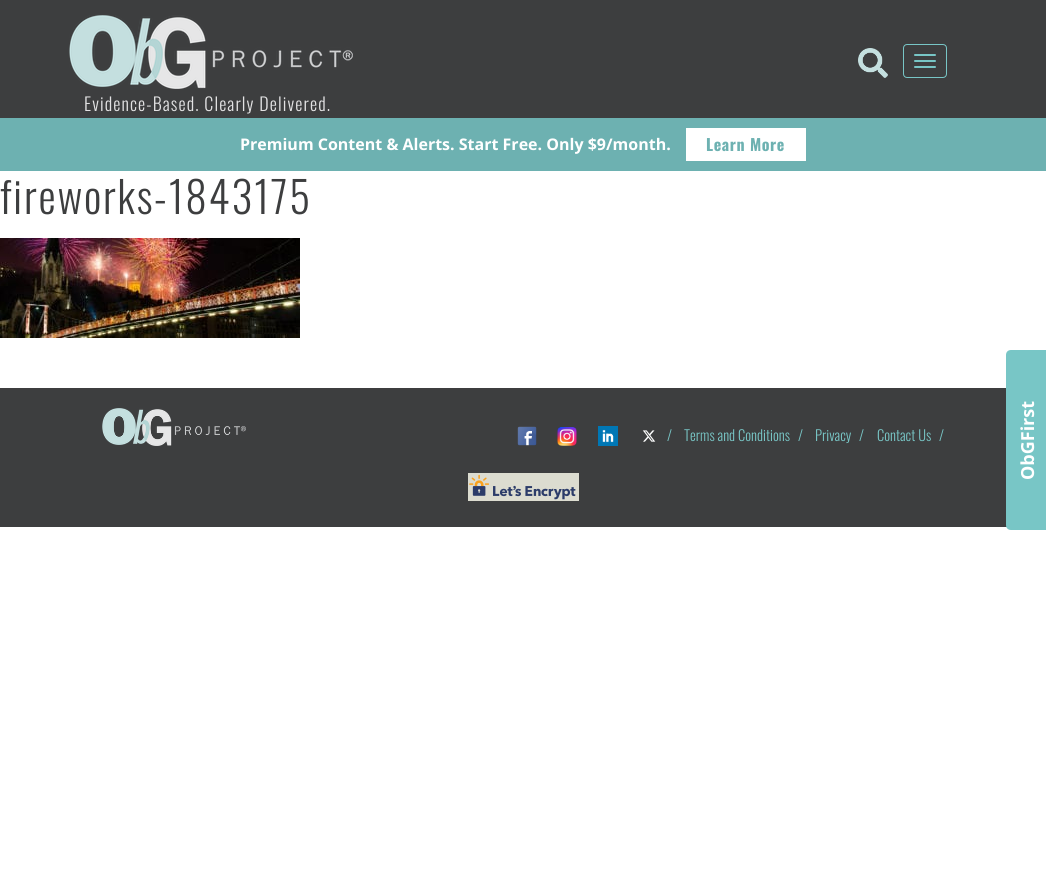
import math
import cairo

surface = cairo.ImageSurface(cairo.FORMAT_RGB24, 1046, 887)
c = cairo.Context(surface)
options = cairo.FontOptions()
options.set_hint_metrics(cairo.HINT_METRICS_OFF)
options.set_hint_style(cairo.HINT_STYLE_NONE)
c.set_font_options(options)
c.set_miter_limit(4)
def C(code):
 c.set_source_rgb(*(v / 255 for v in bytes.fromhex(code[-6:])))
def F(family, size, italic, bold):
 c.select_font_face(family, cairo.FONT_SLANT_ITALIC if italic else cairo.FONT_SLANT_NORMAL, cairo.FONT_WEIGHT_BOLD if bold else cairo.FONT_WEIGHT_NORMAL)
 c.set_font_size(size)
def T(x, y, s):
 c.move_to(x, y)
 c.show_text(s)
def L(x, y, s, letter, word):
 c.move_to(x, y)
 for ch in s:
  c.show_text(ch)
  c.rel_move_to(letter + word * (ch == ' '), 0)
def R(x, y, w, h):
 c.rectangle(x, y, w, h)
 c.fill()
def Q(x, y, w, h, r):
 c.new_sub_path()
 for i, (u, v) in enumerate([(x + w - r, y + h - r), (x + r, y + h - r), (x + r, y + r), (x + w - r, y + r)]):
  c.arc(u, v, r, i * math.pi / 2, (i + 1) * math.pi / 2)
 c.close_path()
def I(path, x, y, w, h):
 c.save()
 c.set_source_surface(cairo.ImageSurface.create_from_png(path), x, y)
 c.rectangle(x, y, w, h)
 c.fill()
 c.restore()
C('ffffff')
c.paint()
C('3d3e3f')
R(0,0,1046,118)
I('1.png',858,48,30,30)
Q(903.5,44.5,43,33,3.5)
C('78c6c6')
c.set_line_width(1)
c.stroke()
Q(914,54,22,2,1)
c.fill()
Q(914,60,22,2,1)
c.fill()
Q(914,66,22,2,1)
c.fill()
I('2.png',69,15,284,74)
F('Oswald Light',18,0,0)
C('e2e2e3')
L(84,111,'Evidence-Based. Clearly Delivered.',1.1,0)
C('6db1b1')
R(0,118,1046,53)
F('Open Sans',16,0,1)
C('ffffff')
T(240,150,'Premium Content & Alerts. Start Free. Only $9/month.')
R(686,128,120,33)
F('Oswald',16,0,1)
C('6db1b1')
L(706,151,'Learn More',.6,0)
F('Oswald Light',43.25,0,0)
C('3d3e3f')
L(0,214,'fireworks-1843175',1.75,0)
I('3.png',0,238,300,100)
R(0,388,1007,139)
I('4.png',102,408,144,38)
I('5.png',517,426,20,20)
I('6.png',557,427,20,19)
I('7.png',598,426,20,20)
I('8.png',642,430,14,12)
F('Oswald Light',14.5,0,0)
C('78c6c6')
T(667,441,'/')
T(684,441,'Terms and Conditions')
T(798,441,'/')
T(815,441,'Privacy')
T(859,441,'/')
T(877,441,'Contact Us')
T(939,441,'/')
I('9.png',468,473,111,28)
c.new_path()
c.move_to(1006,525)
c.line_to(1006,355)
c.curve_to(1006,352,1008,350,1011,350)
c.line_to(1046,350)
c.line_to(1046,530)
c.line_to(1011,530)
c.curve_to(1008,530,1006,528,1006,525)
c.close_path()
c.fill()
F('Open Sans',18,0,1)
C('ffffff')
c.save()
c.translate(1034,480)
c.rotate(-90 * math.pi / 180)
T(0,0,'ObGFirst')
c.restore()
surface.write_to_png('o.png')
